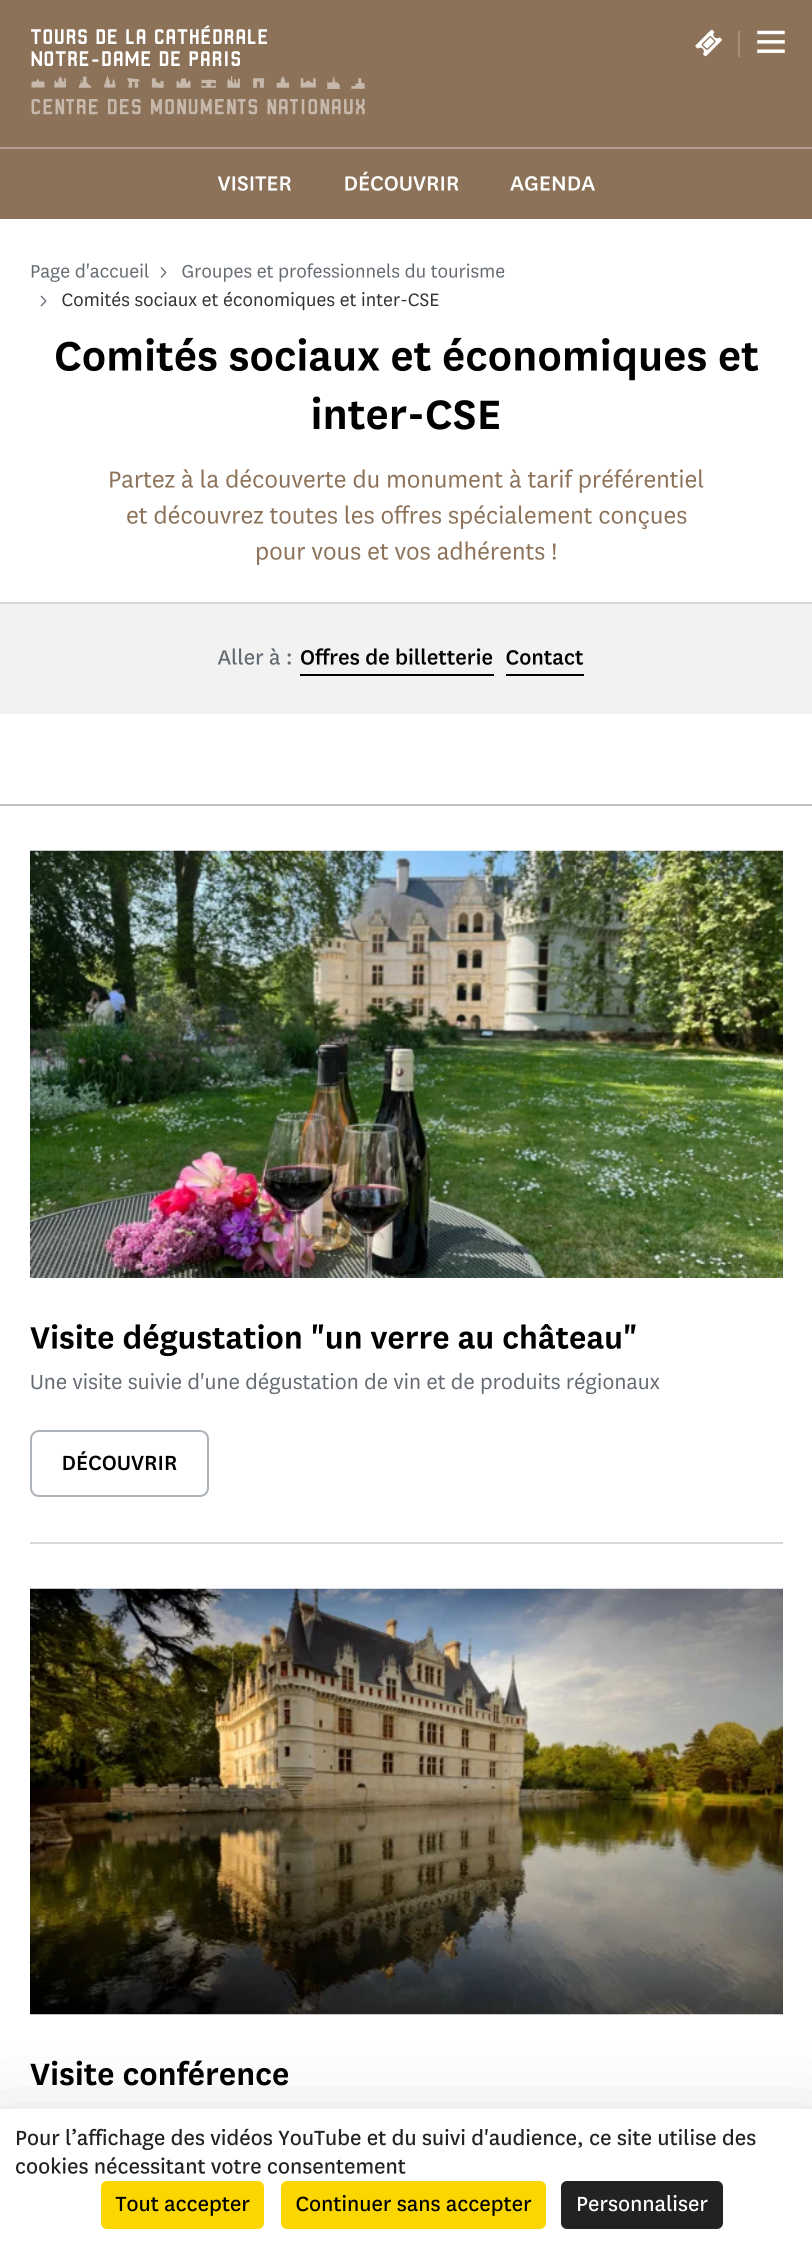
import math
import cairo

surface = cairo.ImageSurface(cairo.FORMAT_RGB24, 812, 2244)
c = cairo.Context(surface)
options = cairo.FontOptions()
options.set_hint_metrics(cairo.HINT_METRICS_OFF)
options.set_hint_style(cairo.HINT_STYLE_NONE)
c.set_font_options(options)
c.set_miter_limit(4)
def C(code):
 c.set_source_rgb(*(v / 255 for v in bytes.fromhex(code[-6:])))
def F(family, size, italic, bold):
 c.select_font_face(family, cairo.FONT_SLANT_ITALIC if italic else cairo.FONT_SLANT_NORMAL, cairo.FONT_WEIGHT_BOLD if bold else cairo.FONT_WEIGHT_NORMAL)
 c.set_font_size(size)
def T(x, y, s):
 c.move_to(x, y)
 c.show_text(s)
def R(x, y, w, h):
 c.rectangle(x, y, w, h)
 c.fill()
def Q(x, y, w, h, r):
 c.new_sub_path()
 for i, (u, v) in enumerate([(x + w - r, y + h - r), (x + r, y + h - r), (x + r, y + r), (x + w - r, y + r)]):
  c.arc(u, v, r, i * math.pi / 2, (i + 1) * math.pi / 2)
 c.close_path()
def S(x, y, w, h, r, blur, alpha):
 c.push_group_with_content(cairo.CONTENT_ALPHA)
 c.set_operator(cairo.OPERATOR_SOURCE)
 for i in range(15, -16, -2):
  e = blur * i / 6
  if min(w, h) + 2 * e > 0:
   c.set_source_rgba(0, 0, 0, alpha * math.erfc((i - 1) / 8.5) / 2)
   Q(x - e, y - e, w + 2 * e, h + 2 * e, max(0, min(r + e + blur * .6, min(w, h) / 2 + e)))
   c.fill()
 c.mask(c.pop_group())
def I(path, x, y, w, h):
 c.save()
 c.set_source_surface(cairo.ImageSurface.create_from_png(path), x, y)
 c.rectangle(x, y, w, h)
 c.fill()
 c.restore()
C('ffffff')
c.paint()
C('8c7259')
R(0,0,812,219)
F('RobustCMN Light',22.4,0,0)
C('ffffff')
T(30,44,'TOURS DE LA CATHÉDRALE')
T(30,66,'NOTRE-DAME DE PARIS')
I('1.png',31,75,334,40)
I('2.png',695,29,27,28)
C('a38e7a')
R(738,31,2,26)
I('3.png',757,30,28,23)
C('af9c8b')
R(0,147,812,2)
I('4.png',217,176,74,15)
I('5.png',345,171,114,20)
I('6.png',510,176,85,15)
I('7.png',31,263,118,19)
I('8.png',160,267,7,11)
I('9.png',182,263,323,19)
I('10.png',40,295,7,12)
I('11.png',62,291,377,20)
I('12.png',56,337,703,44)
I('13.png',313,396,186,34)
I('14.png',110,469,594,24)
I('15.png',127,505,560,25)
I('16.png',257,541,299,24)
C('f2f2f2')
R(0,604,812,110)
C('d8d8d8')
R(0,602,812,2)
I('17.png',217,648,74,17)
C('000000')
R(300,674,194,2)
I('18.png',301,648,192,17)
R(506,674,78,2)
I('19.png',506,650,78,15)
C('bfbfbf')
R(0,804,812,2)
C('d8d8d8')
R(30,1542,753,2)
I('20.png',30,850,753,428)
I('21.png',30,1324,606,33)
I('22.png',31,1372,629,23)
Q(31,1431,177,65,8)
C('acb2b9')
c.stroke()
I('23.png',63,1451,114,20)
I('24.png',30,1588,753,427)
I('25.png',30,2060,258,26)
C('000000')
S(0,2139,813,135,0,45,.25)
C('ffffff')
R(0,2109,812,135)
I('26.png',17,2128,739,23)
I('27.png',16,2157,390,17)
C('fbd600')
Q(101,2181,163,48,6)
c.fill()
I('28.png',115,2196,135,20)
Q(281,2181,265,48,6)
c.fill()
I('29.png',296,2194,236,22)
C('222222')
Q(561,2181,162,48,6)
c.fill()
I('30.png',578,2194,130,18)
surface.write_to_png('o.png')
